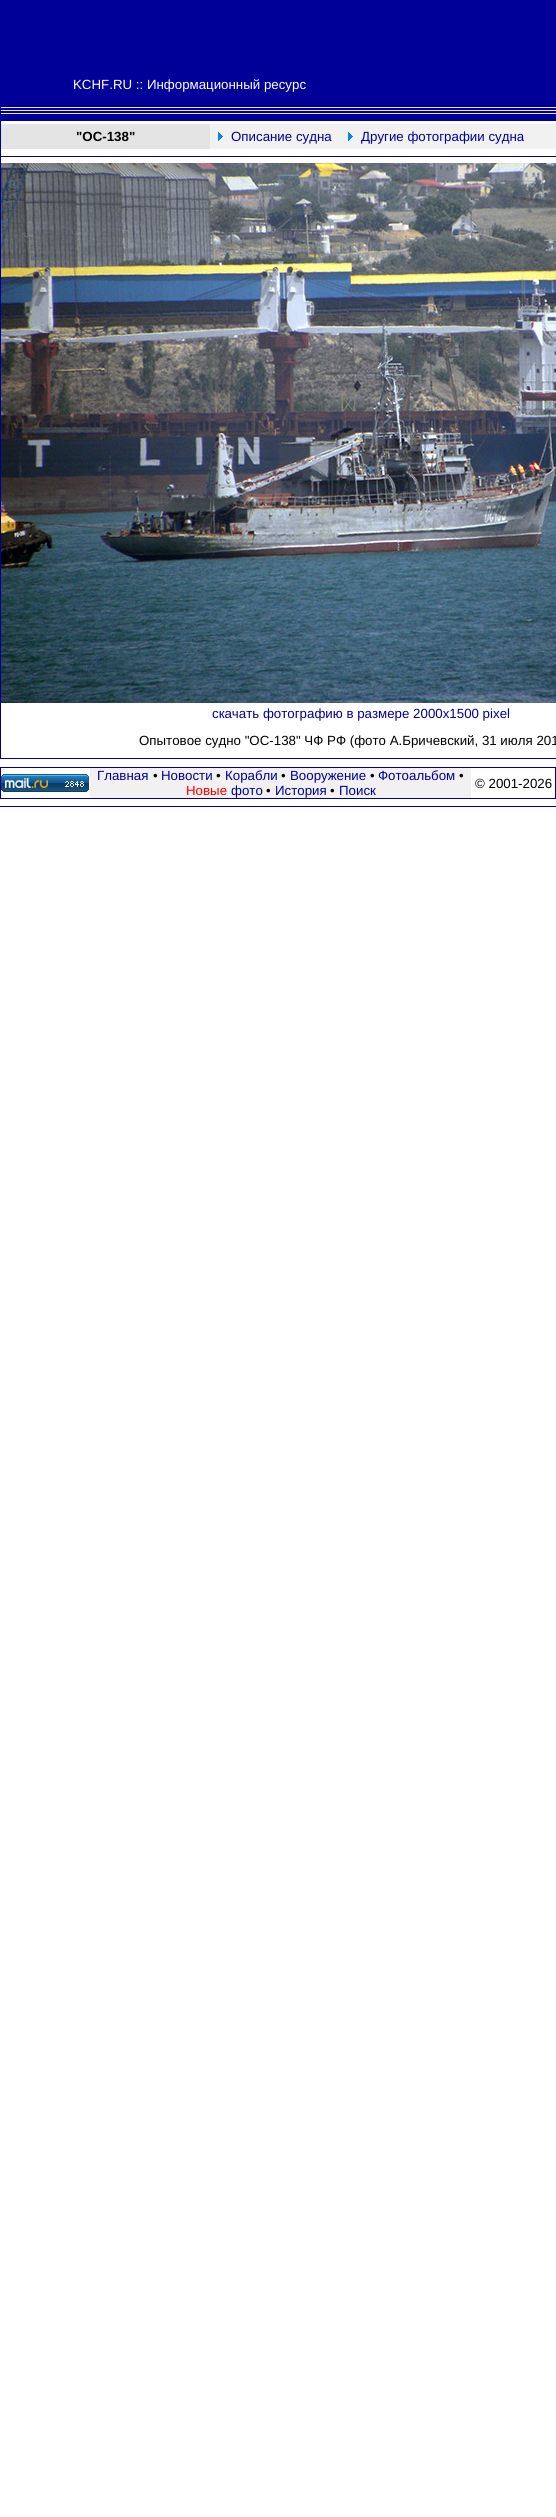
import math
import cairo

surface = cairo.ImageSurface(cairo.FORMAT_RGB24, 556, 2517)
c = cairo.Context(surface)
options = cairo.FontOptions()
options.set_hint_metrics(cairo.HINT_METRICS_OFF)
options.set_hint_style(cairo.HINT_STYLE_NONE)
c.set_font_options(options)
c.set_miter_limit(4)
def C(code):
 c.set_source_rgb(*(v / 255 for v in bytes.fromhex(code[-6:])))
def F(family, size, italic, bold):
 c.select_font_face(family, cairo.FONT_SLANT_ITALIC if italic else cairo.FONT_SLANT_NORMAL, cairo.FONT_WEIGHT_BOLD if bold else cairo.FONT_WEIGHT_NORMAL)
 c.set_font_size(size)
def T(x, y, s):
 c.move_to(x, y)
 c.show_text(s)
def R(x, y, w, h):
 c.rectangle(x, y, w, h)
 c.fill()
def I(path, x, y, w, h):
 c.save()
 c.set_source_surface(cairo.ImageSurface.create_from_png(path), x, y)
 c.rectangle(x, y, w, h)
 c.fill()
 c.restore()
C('ffffff')
c.paint()
C('000099')
R(0,0,556,759)
C('ffffff')
R(1,121,555,637)
F('Liberation Sans',13.3,0,0)
T(73,89,'KCHF.RU :: Информационный ресурс')
I('1.png',1,107,555,7)
C('e4e4e4')
R(1,124,209,25)
F('Liberation Sans',13.3,0,1)
C('000000')
T(76,141,'"ОС-138"')
C('f1f1f1')
R(210,124,346,25)
I('2.png',218,132,5,9)
F('Liberation Sans',13.3,0,0)
C('000099')
T(231,141,'Описание судна')
I('2.png',348,132,5,9)
T(361,141,'Другие фотографии судна')
R(1,156,555,1)
I('3.png',1,163,555,540)
T(212,718,'скачать фотографию в размере 2000х1500 pixel')
C('000000')
T(139,745,'Опытовое судно "ОС-138" ЧФ РФ (фото А.Бричевский, 31 июля 201')
C('000099')
R(0,767,556,32)
C('ffffff')
R(1,768,554,30)
I('4.png',1,774,88,18)
C('f1f1f1')
R(90,768,381,30)
C('000099')
T(97,780,'Главная')
C('000000')
T(153,780,'•')
C('000099')
T(161,780,'Новости')
C('000000')
T(216,780,'•')
C('000099')
T(225,780,'Корабли')
C('000000')
T(281,780,'•')
C('000099')
T(290,780,'Вооружение')
C('000000')
T(370,780,'•')
C('000099')
T(378,780,'Фотоальбом')
C('000000')
T(459,780,'•')
C('ff0000')
T(186,795,'Новые')
C('000099')
T(231,795,'фото')
C('000000')
T(266,795,'•')
C('000099')
T(275,795,'История')
C('000000')
T(330,795,'•')
C('000099')
T(339,795,'Поиск')
C('000000')
T(475,788,'© 2001-2026')
C('000099')
R(0,806,556,1)
surface.write_to_png('o.png')
